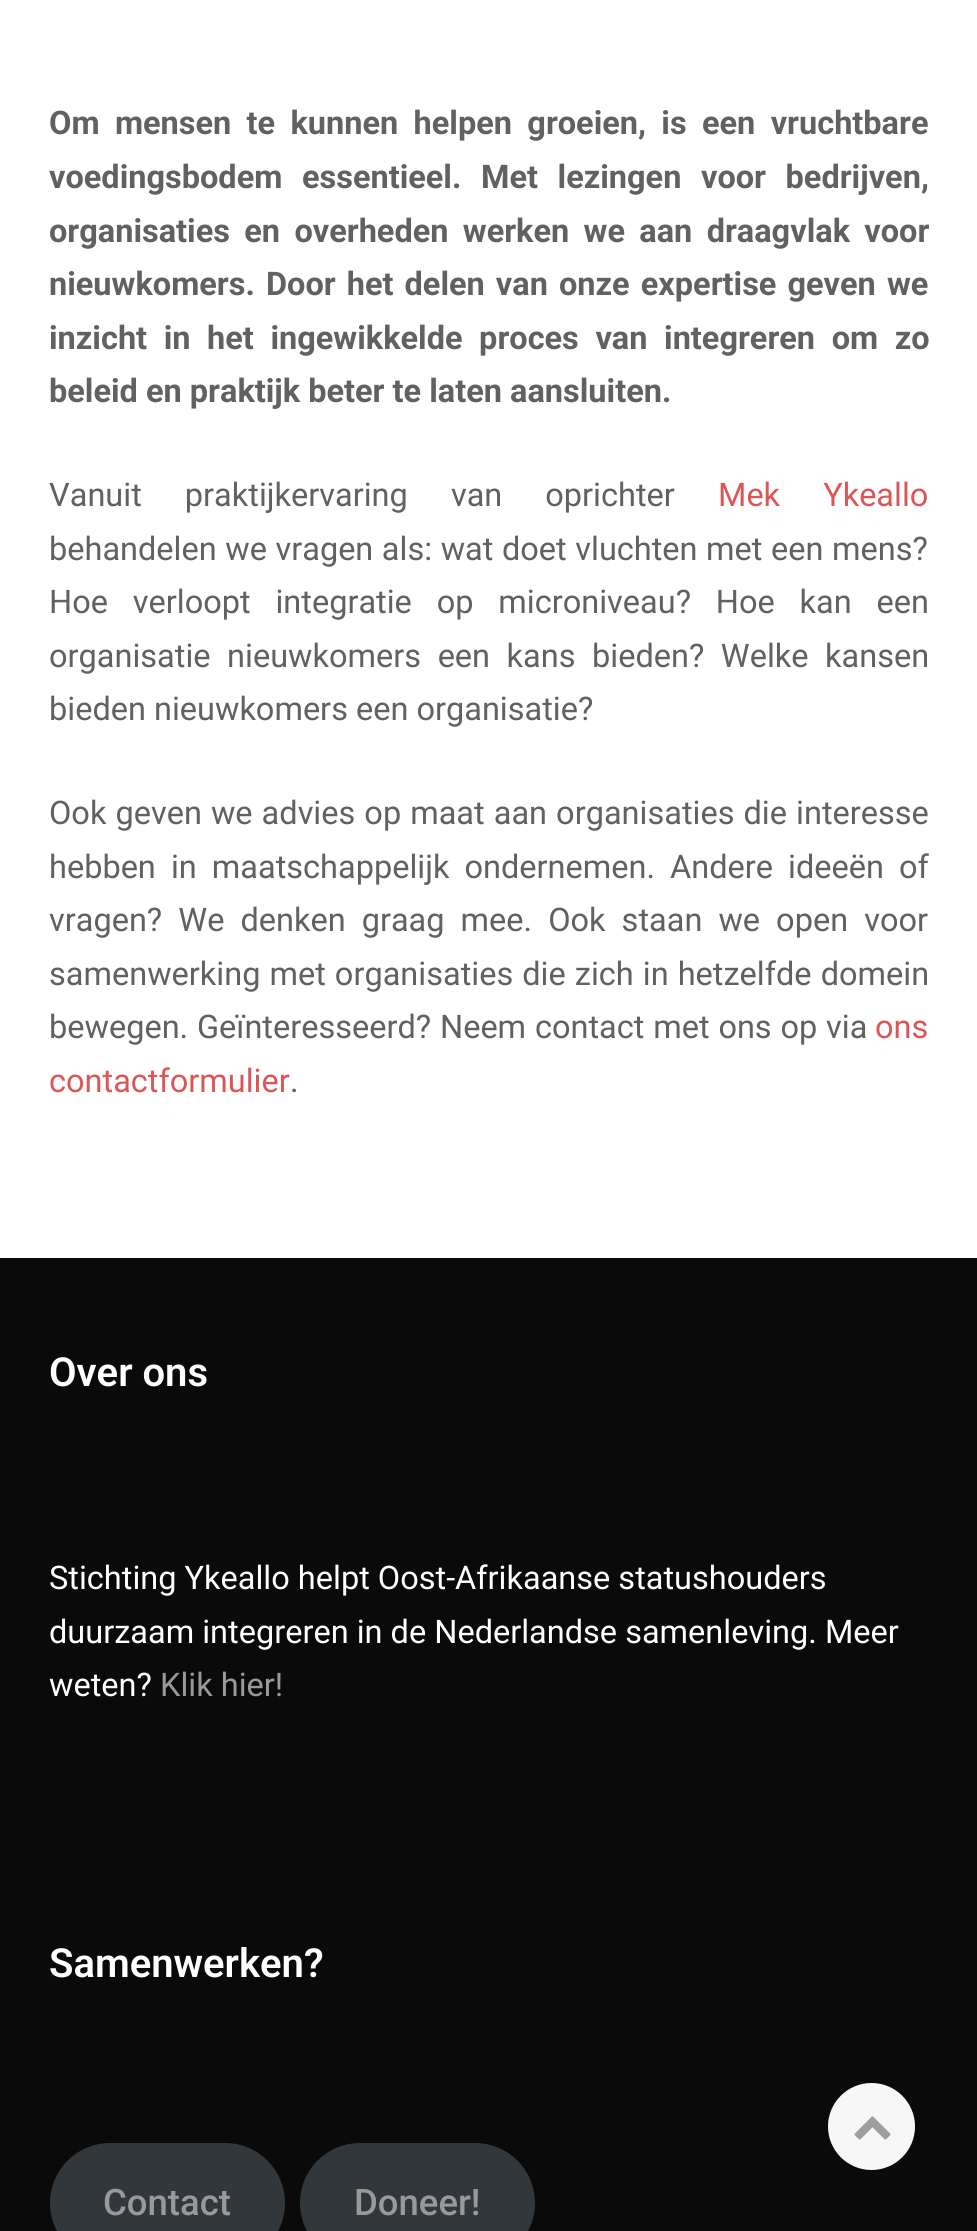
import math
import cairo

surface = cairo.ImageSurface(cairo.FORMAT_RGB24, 977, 2231)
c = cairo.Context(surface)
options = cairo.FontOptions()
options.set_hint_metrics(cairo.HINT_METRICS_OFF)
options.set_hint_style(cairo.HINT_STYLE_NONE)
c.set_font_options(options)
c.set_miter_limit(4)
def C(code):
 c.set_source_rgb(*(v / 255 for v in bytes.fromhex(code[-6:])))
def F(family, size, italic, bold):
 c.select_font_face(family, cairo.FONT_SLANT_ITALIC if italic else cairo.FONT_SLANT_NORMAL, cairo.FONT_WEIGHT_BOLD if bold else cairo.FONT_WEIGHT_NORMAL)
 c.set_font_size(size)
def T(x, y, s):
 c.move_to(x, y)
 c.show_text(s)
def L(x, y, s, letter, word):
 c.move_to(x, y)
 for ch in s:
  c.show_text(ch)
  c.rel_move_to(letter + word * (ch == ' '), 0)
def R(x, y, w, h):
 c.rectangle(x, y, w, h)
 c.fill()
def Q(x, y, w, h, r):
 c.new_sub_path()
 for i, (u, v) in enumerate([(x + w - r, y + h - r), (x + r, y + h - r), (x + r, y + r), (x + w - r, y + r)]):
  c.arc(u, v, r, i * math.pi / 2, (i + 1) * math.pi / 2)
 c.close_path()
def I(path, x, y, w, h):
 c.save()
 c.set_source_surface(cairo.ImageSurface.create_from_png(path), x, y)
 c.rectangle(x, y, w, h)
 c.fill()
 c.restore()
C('ffffff')
c.paint()
F('Roboto',32.5,0,1)
C('616161')
L(49,134,'Om mensen te kunnen helpen groeien, is een vruchtbare',0,7.25)
L(49,188,'voedingsbodem essentieel. Met lezingen voor bedrijven,',0,11.5)
L(49,242,'organisaties en overheden werken we aan draagvlak voor',0,6.25)
L(49,295,'nieuwkomers. Door het delen van onze expertise geven we',0,3)
L(49,349,'inzicht in het ingewikkelde proces van integreren om zo',0,8.5)
T(49,402,'beleid en praktijk beter te laten aansluiten.')
F('Roboto',32.5,0,0)
L(49,506,'Vanuit praktijkervaring van oprichter',0,35)
C('dd5656')
L(718,506,'Mek Ykeallo',0,35)
C('616161')
L(49,560,'behandelen we vragen als: wat doet vluchten met een mens?',0,.5)
L(49,613,'Hoe verloopt integratie op microniveau? Hoe kan een',0,16.75)
L(49,667,'organisatie nieuwkomers een kans bieden? Welke kansen',0,8.5)
T(49,720,'bieden nieuwkomers een organisatie?')
L(49,824,'Ook geven we advies op maat aan organisaties die interesse',0,1)
L(49,878,'hebben in maatschappelijk ondernemen. Andere ideeën of',0,7)
L(49,931,'vragen? We denken graag mee. Ook staan we open voor',0,8)
L(49,985,'samenwerking met organisaties die zich in hetzelfde domein',0,1)
L(49,1038,'bewegen. Geïnteresseerd? Neem contact met ons op via',0,.75)
C('dd5656')
T(875,1038,'ons')
T(49,1092,'contactformulier')
C('616161')
T(290,1092,'.')
C('0a0a0a')
R(0,1258,977,973)
F('Roboto SemiBold',40,0,0)
C('ffffff')
T(49,1386,'Over ons')
F('Roboto',32.5,0,0)
T(49,1589,'Stichting Ykeallo helpt Oost-Afrikaanse statushouders')
T(49,1643,'duurzaam integreren in de Nederlandse samenleving. Meer')
T(49,1696,'weten?')
C('999999')
T(160,1696,'Klik hier!')
F('Roboto SemiBold',40,0,0)
C('ffffff')
T(49,1977,'Samenwerken?')
C('32373c')
Q(50,2143,235,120,60)
c.fill()
F('Roboto Medium',36.5,0,0)
C('999999')
T(103,2215,'Contact')
C('32373c')
Q(300,2143,235,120,60)
c.fill()
C('999999')
T(354,2215,'Doneer!')
C('f7f7f7')
c.new_path()
c.arc(871.5,2126.5,43.5,0,2 * math.pi)
c.fill()
I('1.png',854,2116,37,24)
surface.write_to_png('o.png')
